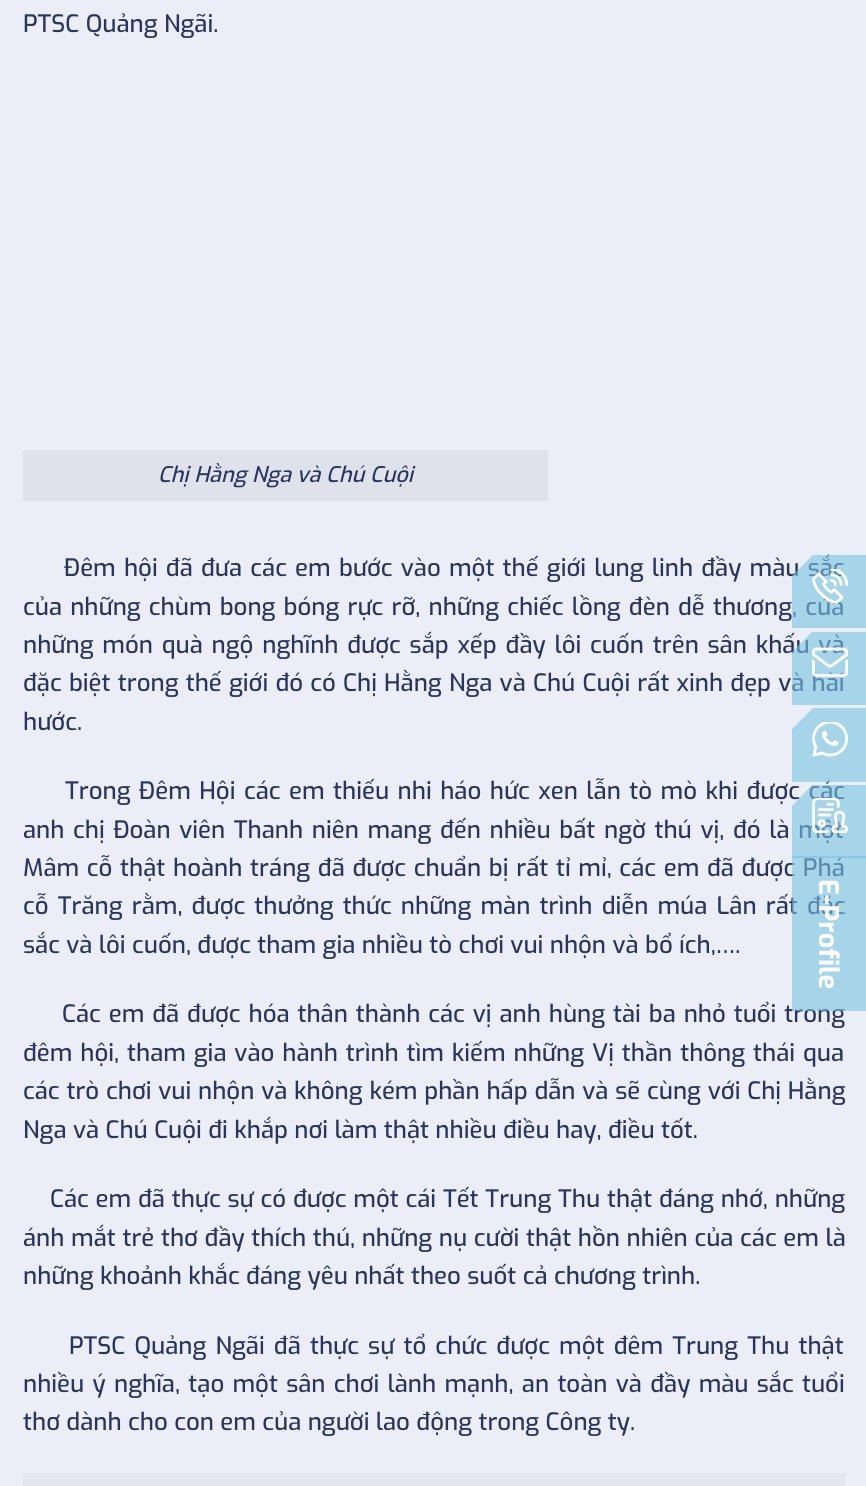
import math
import cairo

surface = cairo.ImageSurface(cairo.FORMAT_RGB24, 866, 1486)
c = cairo.Context(surface)
options = cairo.FontOptions()
options.set_hint_metrics(cairo.HINT_METRICS_OFF)
options.set_hint_style(cairo.HINT_STYLE_NONE)
c.set_font_options(options)
c.set_miter_limit(4)
def C(code):
 c.set_source_rgb(*(v / 255 for v in bytes.fromhex(code[-6:])))
def F(family, size, italic, bold):
 c.select_font_face(family, cairo.FONT_SLANT_ITALIC if italic else cairo.FONT_SLANT_NORMAL, cairo.FONT_WEIGHT_BOLD if bold else cairo.FONT_WEIGHT_NORMAL)
 c.set_font_size(size)
def T(x, y, s):
 c.move_to(x, y)
 c.show_text(s)
def L(x, y, s, letter, word):
 c.move_to(x, y)
 for ch in s:
  c.show_text(ch)
  c.rel_move_to(letter + word * (ch == ' '), 0)
def R(x, y, w, h):
 c.rectangle(x, y, w, h)
 c.fill()
def I(path, x, y, w, h):
 c.save()
 c.set_source_surface(cairo.ImageSurface.create_from_png(path), x, y)
 c.rectangle(x, y, w, h)
 c.fill()
 c.restore()
C('ebeef6')
c.paint()
F('Exo Medium',24,0,0)
C('293461')
T(23,32,'PTSC Quảng Ngãi.')
C('dfe2ea')
R(23,450,525,51)
F('Exo Medium',21.6,1,0)
C('293461')
T(158,482,'Chị Hằng Nga và Chú Cuội')
F('Exo Medium',24,0,0)
L(64,576,'Đêm hội đã đưa các em bước vào một thế giới lung linh đầy màu sắc',0,1.8)
L(23,615,'của những chùm bong bóng rực rỡ, những chiếc lồng đèn dễ thương, của',0,1.75)
L(23,653,'những món quà ngộ nghĩnh được sắp xếp đầy lôi cuốn trên sân khấu và',0,2.4)
L(23,691,'đặc biệt trong thế giới đó có Chị Hằng Nga và Chú Cuội rất xinh đẹp và hài',0,.8)
T(23,730,'hước.')
L(65,799,'Trong Đêm Hội các em thiếu nhi háo hức xen lẫn tò mò khi được các',0,2.1)
L(23,838,'anh chị Đoàn viên Thanh niên mang đến nhiều bất ngờ thú vị, đó là một',0,2.25)
L(23,876,'Mâm cỗ thật hoành tráng đã được chuẩn bị rất tỉ mỉ, các em đã được Phá',0,1.3)
L(23,914,'cỗ Trăng rằm, được thưởng thức những màn trình diễn múa Lân rất đặc',0,2.75)
T(23,953,'sắc và lôi cuốn, được tham gia nhiều tò chơi vui nhộn và bổ ích,….')
L(62,1022,'Các em đã được hóa thân thành các vị anh hùng tài ba nhỏ tuổi trong',0,1.5)
L(23,1061,'đêm hội, tham gia vào hành trình tìm kiếm những Vị thần thông thái qua',0,1.5)
L(23,1099,'các trò chơi vui nhộn và không kém phần hấp dẫn và sẽ cùng với Chị Hằng',0,.4)
T(23,1138,'Nga và Chú Cuội đi khắp nơi làm thật nhiều điều hay, điều tốt.')
L(50,1207,'Các em đã thực sự có được một cái Tết Trung Thu thật đáng nhớ, những',0,.4)
L(23,1246,'ánh mắt trẻ thơ đầy thích thú, những nụ cười thật hồn nhiên của các em là',0,.25)
T(23,1284,'những khoảnh khắc đáng yêu nhất theo suốt cả chương trình.')
L(69,1354,'PTSC Quảng Ngãi đã thực sự tổ chức được một đêm Trung Thu thật',0,2.75)
L(23,1392,'nhiều ý nghĩa, tạo một sân chơi lành mạnh, an toàn và đầy màu sắc tuổi',0,1.9)
T(23,1430,'thơ dành cho con em của người lao động trong Công ty.')
C('e4e7ef')
R(23,1473,822,13)
c.set_source_rgba(0.475,0.765,0.882,0.6)
c.new_path()
c.move_to(792,576)
c.line_to(813,555)
c.line_to(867,555)
c.line_to(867,628)
c.line_to(792,628)
c.close_path()
c.fill()
I('1.png',812,569,36,35)
c.new_path()
c.move_to(792,652)
c.line_to(812,632)
c.line_to(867,632)
c.line_to(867,705)
c.line_to(792,705)
c.close_path()
c.fill()
I('2.png',812,647,36,30)
c.new_path()
c.move_to(792,729)
c.line_to(813,708)
c.line_to(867,708)
c.line_to(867,782)
c.line_to(792,782)
c.close_path()
c.fill()
I('3.png',812,722,36,35)
c.new_path()
c.move_to(792,806)
c.line_to(812,785)
c.line_to(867,785)
c.line_to(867,858)
c.line_to(792,858)
c.close_path()
c.fill()
I('4.png',812,798,36,35)
R(792,856,74,155)
F('Exo',27,0,1)
C('ffffff')
c.save()
c.translate(819,879)
c.rotate(90 * math.pi / 180)
T(0,0,'E-Profile')
c.restore()
surface.write_to_png('o.png')
